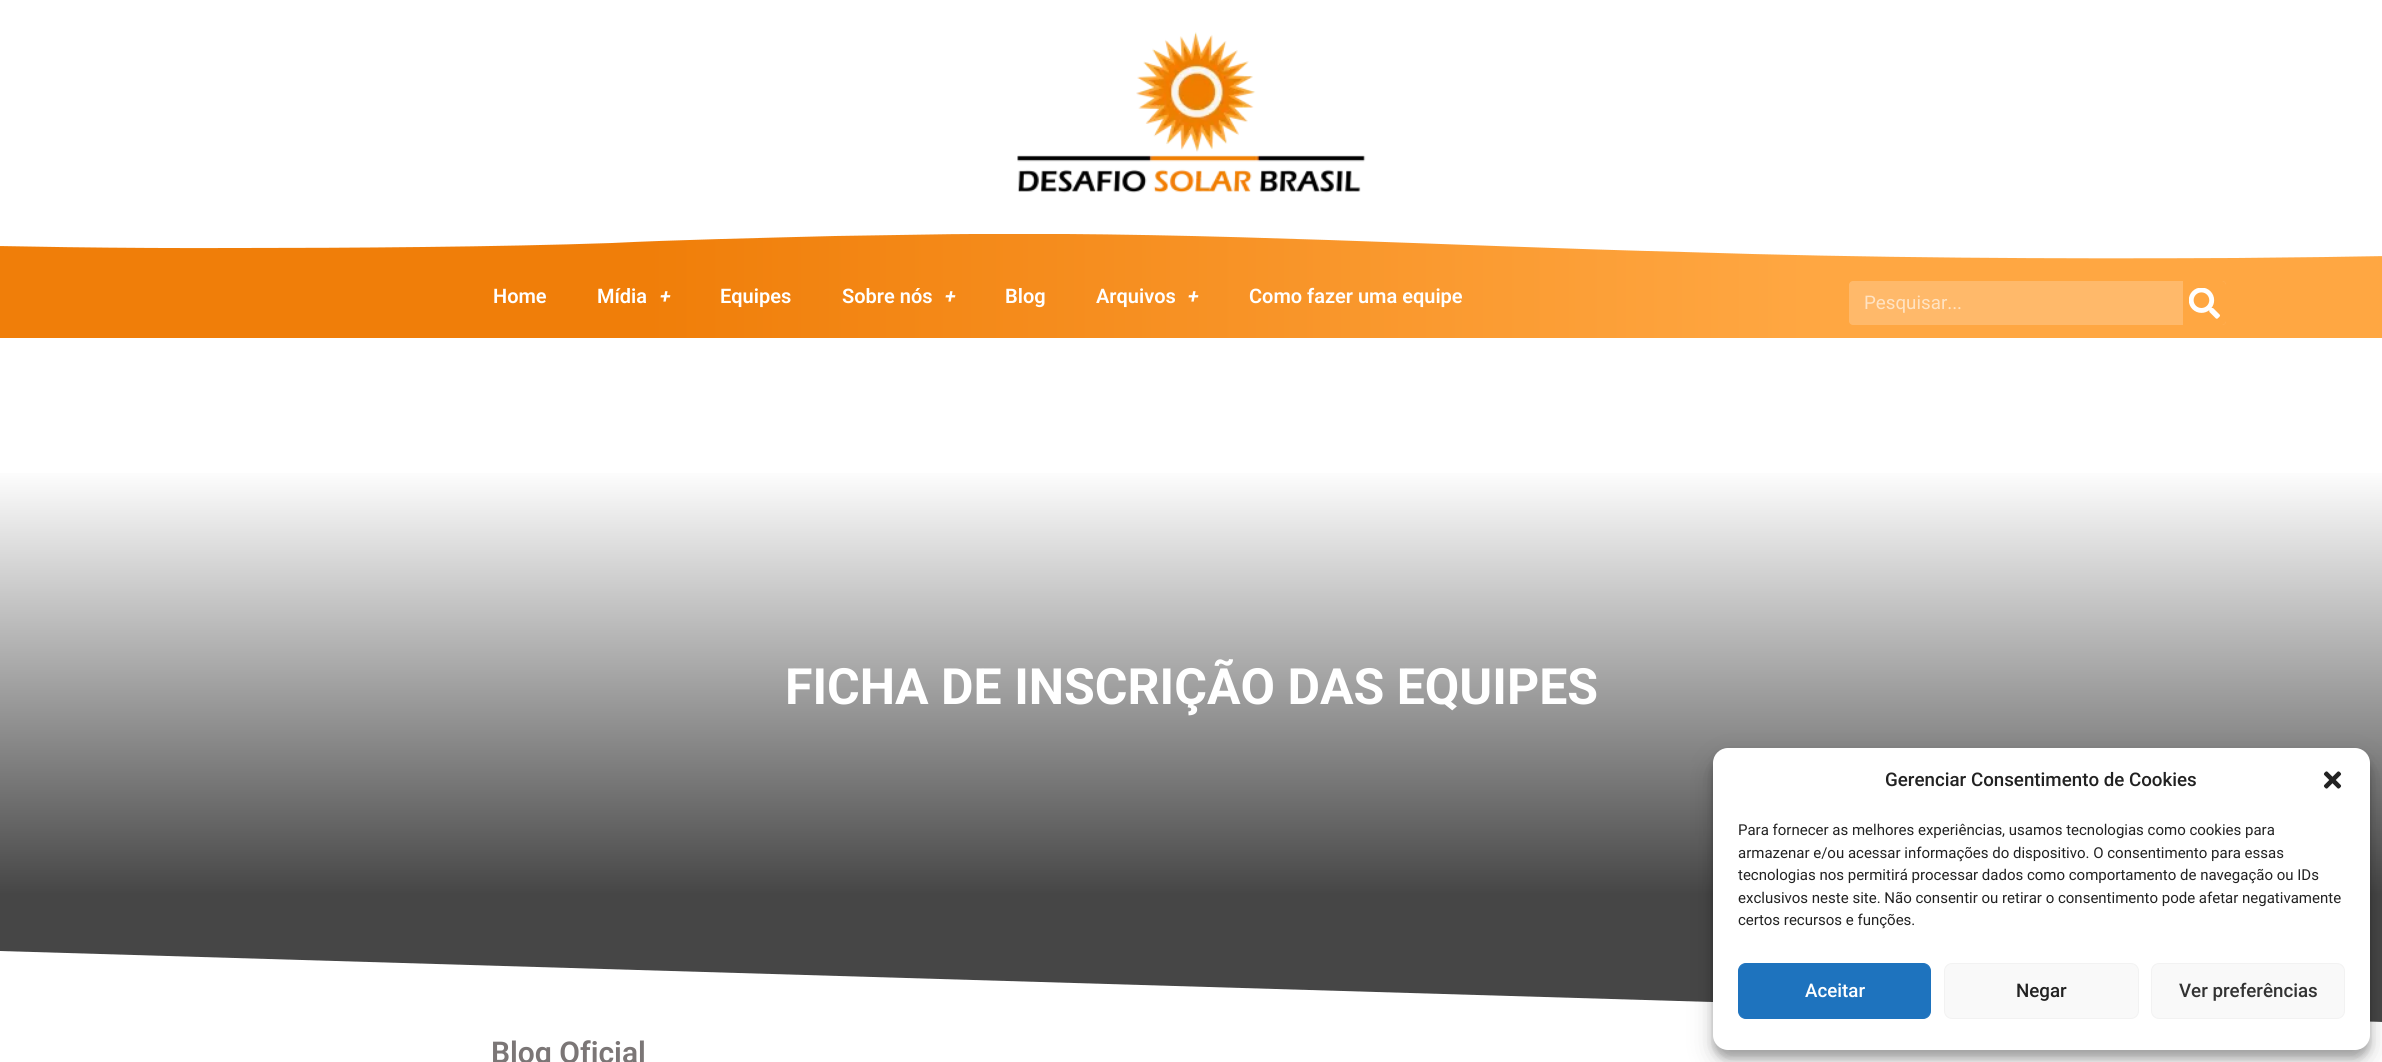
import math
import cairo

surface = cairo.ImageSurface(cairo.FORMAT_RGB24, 2382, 1062)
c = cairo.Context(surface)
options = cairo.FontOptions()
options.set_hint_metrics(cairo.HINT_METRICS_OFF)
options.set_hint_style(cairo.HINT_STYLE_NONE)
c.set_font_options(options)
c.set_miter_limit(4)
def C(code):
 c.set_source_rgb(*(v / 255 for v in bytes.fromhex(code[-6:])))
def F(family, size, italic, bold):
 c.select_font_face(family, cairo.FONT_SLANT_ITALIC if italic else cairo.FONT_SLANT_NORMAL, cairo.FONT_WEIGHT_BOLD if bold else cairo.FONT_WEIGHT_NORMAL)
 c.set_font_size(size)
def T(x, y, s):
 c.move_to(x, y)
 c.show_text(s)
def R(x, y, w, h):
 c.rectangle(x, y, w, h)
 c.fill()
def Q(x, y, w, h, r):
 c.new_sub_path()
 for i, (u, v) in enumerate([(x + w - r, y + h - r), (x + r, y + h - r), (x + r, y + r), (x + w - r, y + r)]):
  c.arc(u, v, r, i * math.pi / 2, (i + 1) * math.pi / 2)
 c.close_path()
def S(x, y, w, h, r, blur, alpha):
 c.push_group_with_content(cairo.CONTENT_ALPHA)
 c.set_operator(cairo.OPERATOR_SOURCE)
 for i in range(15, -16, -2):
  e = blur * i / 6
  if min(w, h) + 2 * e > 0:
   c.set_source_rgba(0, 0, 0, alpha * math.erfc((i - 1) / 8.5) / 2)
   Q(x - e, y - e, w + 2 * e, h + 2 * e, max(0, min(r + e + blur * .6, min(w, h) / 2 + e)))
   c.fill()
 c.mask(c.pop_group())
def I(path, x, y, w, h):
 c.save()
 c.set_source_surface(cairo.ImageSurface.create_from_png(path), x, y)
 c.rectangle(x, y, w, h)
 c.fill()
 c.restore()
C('ffffff')
c.paint()
I('1.png',1017,32,349,161)
gradient = cairo.LinearGradient(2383,286,0,286)
gradient.add_color_stop_rgba(.24,1,0.655,0.259,1)
gradient.add_color_stop_rgba(.73,0.941,0.494,0.035,1)
c.set_source(gradient)
R(0,234,2382,104)
c.save()
c.rectangle(0,233,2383,26)
c.clip()
C('ffffff')
c.new_path()
c.move_to(973,234)
c.curve_to(1210,232,1447,246,1684,252)
c.curve_to(1868,258,2052,259,2236,258)
c.curve_to(2353,257,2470,255,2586,251)
c.line_to(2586,232)
c.line_to(-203,232)
c.line_to(-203,240)
c.curve_to(-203,240,-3,249,238,248)
c.curve_to(348,248,497,247,612,243)
c.curve_to(671,240,758,238,835,236)
c.curve_to(910,235,945,234,973,234)
c.close_path()
c.fill()
c.restore()
F('Roboto SemiBold',20,0,0)
C('ffffff')
T(493,303,'Home')
T(597,303,'Mídia')
F('Roboto SemiBold',20,1,0)
T(660,303,'+')
F('Roboto SemiBold',20,0,0)
T(720,303,'Equipes')
T(842,303,'Sobre nós')
F('Roboto SemiBold',20,1,0)
T(945,303,'+')
F('Roboto SemiBold',20,0,0)
T(1005,303,'Blog')
T(1096,303,'Arquivos')
F('Roboto SemiBold',20,1,0)
T(1188,303,'+')
F('Roboto SemiBold',20,0,0)
T(1249,303,'Como fazer uma equipe')
C('ffb96a')
Q(1849,281,377,44,4)
c.fill()
F('Roboto',18.75,0,0)
C('ffe3c3')
T(1864,309,'Pesquisar...')
C('ffa742')
c.new_path()
c.move_to(2183,281)
c.line_to(2222,281)
c.curve_to(2224,281,2226,283,2226,285)
c.line_to(2226,321)
c.curve_to(2226,323,2224,325,2222,325)
c.line_to(2183,325)
c.close_path()
c.fill()
I('2.png',2189,288,31,31)
gradient = cairo.LinearGradient(1191,337,1191,1025)
gradient.add_color_stop_rgba(.19,1,1,1,1)
gradient.add_color_stop_rgba(.81,0.275,0.275,0.275,1)
c.set_source(gradient)
R(0,473,2382,549)
F('Roboto',50,0,1)
C('ffffff')
T(785,704,'FICHA DE INSCRIÇÃO DAS EQUIPES')
c.new_path()
c.move_to(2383,1022)
c.line_to(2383,1026)
c.line_to(-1,1026)
c.line_to(-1,951)
c.close_path()
c.fill()
F('Roboto SemiBold',30,0,0)
C('7b7676')
T(491,1063,'Blog Oficial')
C('000000')
S(1713,755,657,303,15,4,.23)
S(1713,760,657,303,15,12.5,.19)
C('ffffff')
Q(1713,748,657,302,15)
c.fill()
F('Roboto Medium',18.75,0,0)
C('222222')
T(1885,786,'Gerenciar Consentimento de Cookies')
I('3.png',2323,771,19,18)
F('Roboto',15,0,0)
T(1738,835,'Para fornecer as melhores experiências, usamos tecnologias como cookies para')
T(1738,858,'armazenar e/ou acessar informações do dispositivo. O consentimento para essas')
T(1738,880,'tecnologias nos permitirá processar dados como comportamento de navegação ou IDs')
T(1738,903,'exclusivos neste site. Não consentir ou retirar o consentimento pode afetar negativamente')
T(1738,925,'certos recursos e funções.')
C('1e73be')
Q(1738.5,963.5,192,55,7.5)
c.fill_preserve()
c.set_line_width(1)
c.stroke()
F('Roboto Medium',18.75,0,0)
C('ffffff')
T(1805,997,'Aceitar')
C('f9f9f9')
Q(1944.5,963.5,194,55,7.5)
c.fill_preserve()
C('f2f2f2')
c.stroke()
C('222222')
T(2016,997,'Negar')
C('f9f9f9')
Q(2151.5,963.5,193,55,7.5)
c.fill_preserve()
C('f2f2f2')
c.stroke()
C('333333')
T(2179,997,'Ver preferências')
surface.write_to_png('o.png')
